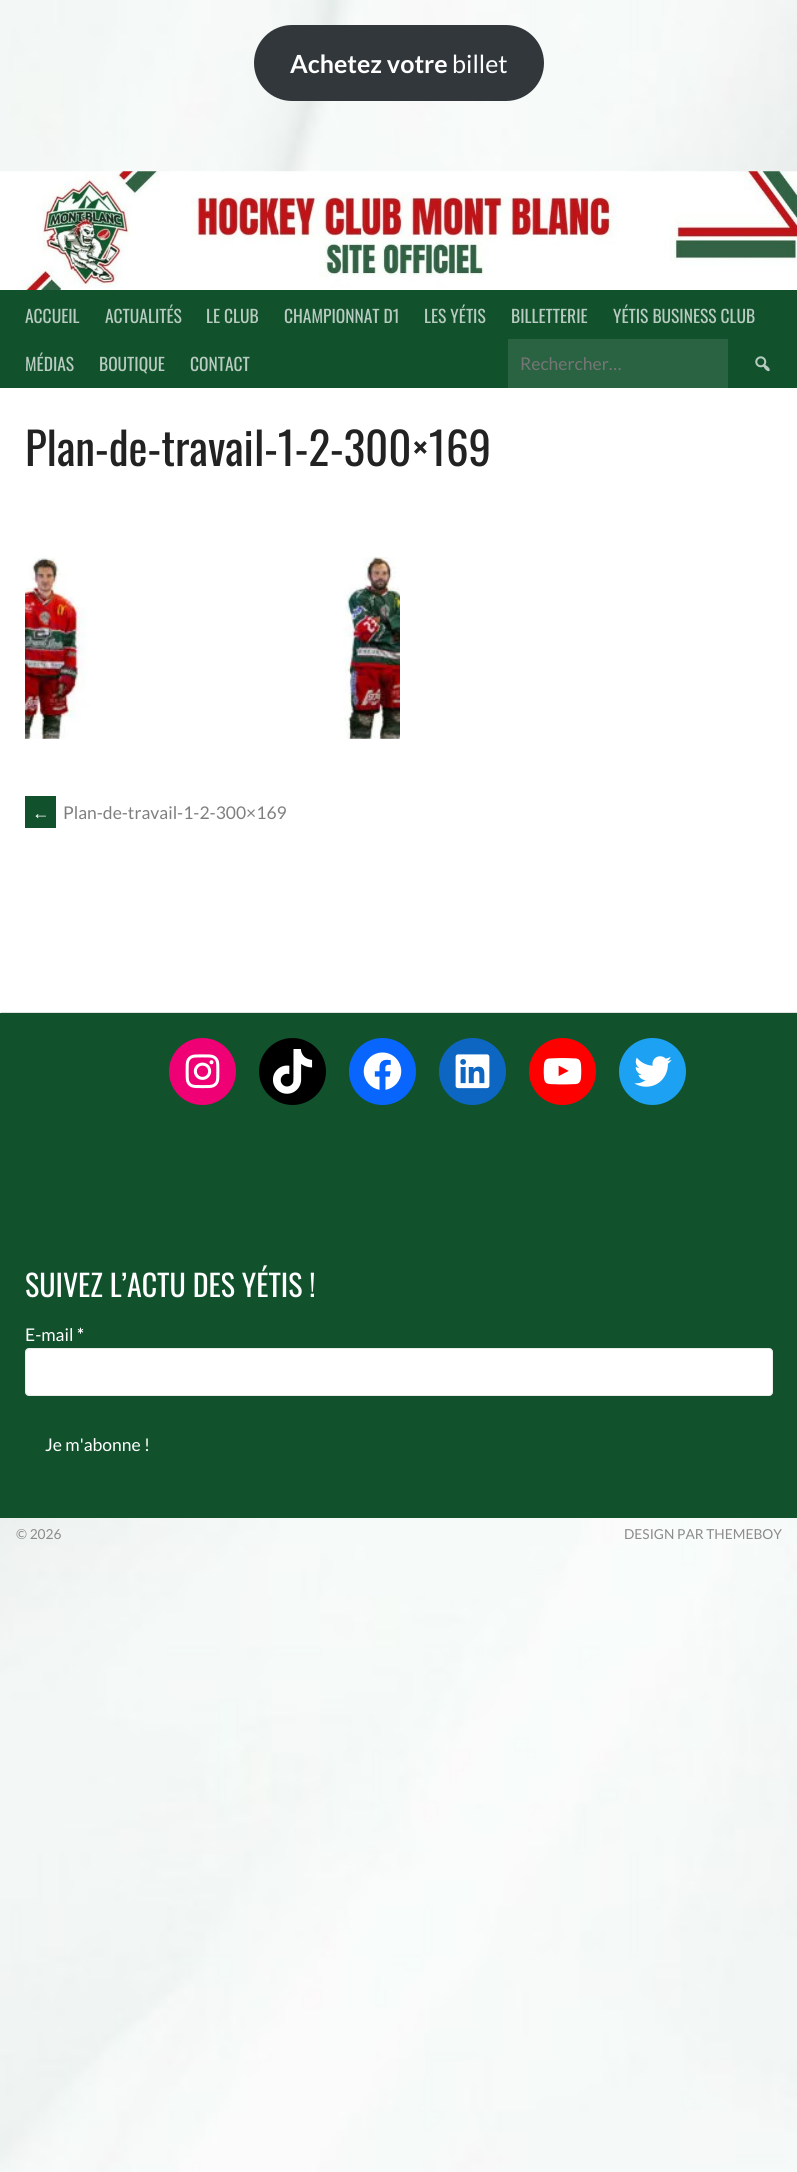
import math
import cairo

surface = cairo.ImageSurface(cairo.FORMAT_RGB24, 797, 2172)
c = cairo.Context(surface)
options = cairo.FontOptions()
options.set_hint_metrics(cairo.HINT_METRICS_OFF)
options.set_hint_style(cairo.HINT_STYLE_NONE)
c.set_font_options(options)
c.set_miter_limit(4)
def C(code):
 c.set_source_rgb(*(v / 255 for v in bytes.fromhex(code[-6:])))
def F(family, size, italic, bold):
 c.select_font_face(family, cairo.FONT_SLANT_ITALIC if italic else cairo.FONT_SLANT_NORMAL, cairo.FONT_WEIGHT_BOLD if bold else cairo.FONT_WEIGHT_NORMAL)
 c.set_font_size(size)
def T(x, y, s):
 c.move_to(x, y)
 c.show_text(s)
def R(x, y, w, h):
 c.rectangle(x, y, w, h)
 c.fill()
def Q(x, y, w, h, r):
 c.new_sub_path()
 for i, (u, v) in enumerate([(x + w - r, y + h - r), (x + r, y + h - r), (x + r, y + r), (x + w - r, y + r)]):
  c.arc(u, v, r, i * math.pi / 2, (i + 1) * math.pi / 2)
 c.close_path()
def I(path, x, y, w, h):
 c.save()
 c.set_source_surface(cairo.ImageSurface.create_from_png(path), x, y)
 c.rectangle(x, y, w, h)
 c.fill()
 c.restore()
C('ffffff')
c.paint()
I('1.png',0,0,797,2172)
C('32373c')
Q(254,25,290,76,38)
c.fill()
F('Lato',25,0,1)
C('ffffff')
T(290,73,'Achetez votre')
F('Lato',25,0,0)
T(452,73,'billet')
I('2.png',0,171,797,119)
C('11522d')
R(0,290,797,98)
F('Oswald',17.5,0,0)
C('b8cbc0')
T(25,323,'ACCUEIL')
T(105,323,'ACTUALITÉS')
T(206,323,'LE CLUB')
T(284,323,'CHAMPIONNAT D1')
T(424,323,'LES YÉTIS')
T(511,323,'BILLETTERIE')
T(613,323,'YÉTIS BUSINESS CLUB')
T(25,371,'MÉDIAS')
T(99,371,'BOUTIQUE')
T(190,371,'CONTACT')
C('296342')
R(508,339,220,49)
F('Lato',17.5,0,0)
C('757575')
T(520,370,'Rechercher…')
I('3.png',755,356,15,16)
C('ffffff')
R(0,388,797,625)
C('e0e0e0')
c.new_path()
c.move_to(1,1012)
c.line_to(1,1013)
c.line_to(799,1013)
c.line_to(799,388)
c.line_to(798,388)
c.line_to(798,1012)
c.close_path()
c.fill()
F('Oswald',45,0,0)
C('222222')
T(25,466,'Plan-de-travail-1-2-300×169')
I('4.png',25,557,375,182)
C('11522d')
R(25,796,31,32)
F('Liberation Sans',17.5,0,0)
C('ffffff')
T(32,819,'←')
F('Lato',17.5,0,0)
C('7f7f7f')
T(63,819,'Plan-de-travail-1-2-300×169')
C('11522d')
R(0,1013,797,505)
C('f00075')
c.new_path()
c.arc(202.5,1071.5,33.5,0,2 * math.pi)
c.fill()
I('5.png',185,1054,35,35)
C('000000')
c.arc(292.5,1071.5,33.5,0,2 * math.pi)
c.fill()
I('6.png',273,1049,40,45)
C('0866ff')
c.arc(382.5,1071.5,33.5,0,2 * math.pi)
c.fill()
I('7.png',363,1052,39,38)
C('0d66c2')
c.arc(472.5,1071.5,33.5,0,2 * math.pi)
c.fill()
I('8.png',455,1054,35,35)
C('ff0000')
c.arc(562.5,1071.5,33.5,0,2 * math.pi)
c.fill()
I('9.png',543,1058,39,27)
C('1da1f2')
c.arc(652.5,1071.5,33.5,0,2 * math.pi)
c.fill()
I('10.png',634,1056,38,31)
F('Oswald',30,0,0)
C('ffffff')
T(25,1297,'SUIVEZ L’ACTU DES YÉTIS !')
F('Lato',17.5,0,0)
T(25,1341,'E-mail')
F('Lato',17.5,0,1)
T(77,1341,'*')
Q(25.5,1348.5,747,47,3.5)
c.fill_preserve()
C('ebebeb')
c.set_line_width(1)
c.stroke()
F('Lato',17.5,0,0)
C('ffffff')
T(45,1451,'Je m\'abonne !')
F('Lato',13.75,0,0)
C('8b8b8b')
T(16,1539,'© 2026')
T(624,1539,'DESIGN PAR THEMEBOY')
surface.write_to_png('o.png')
